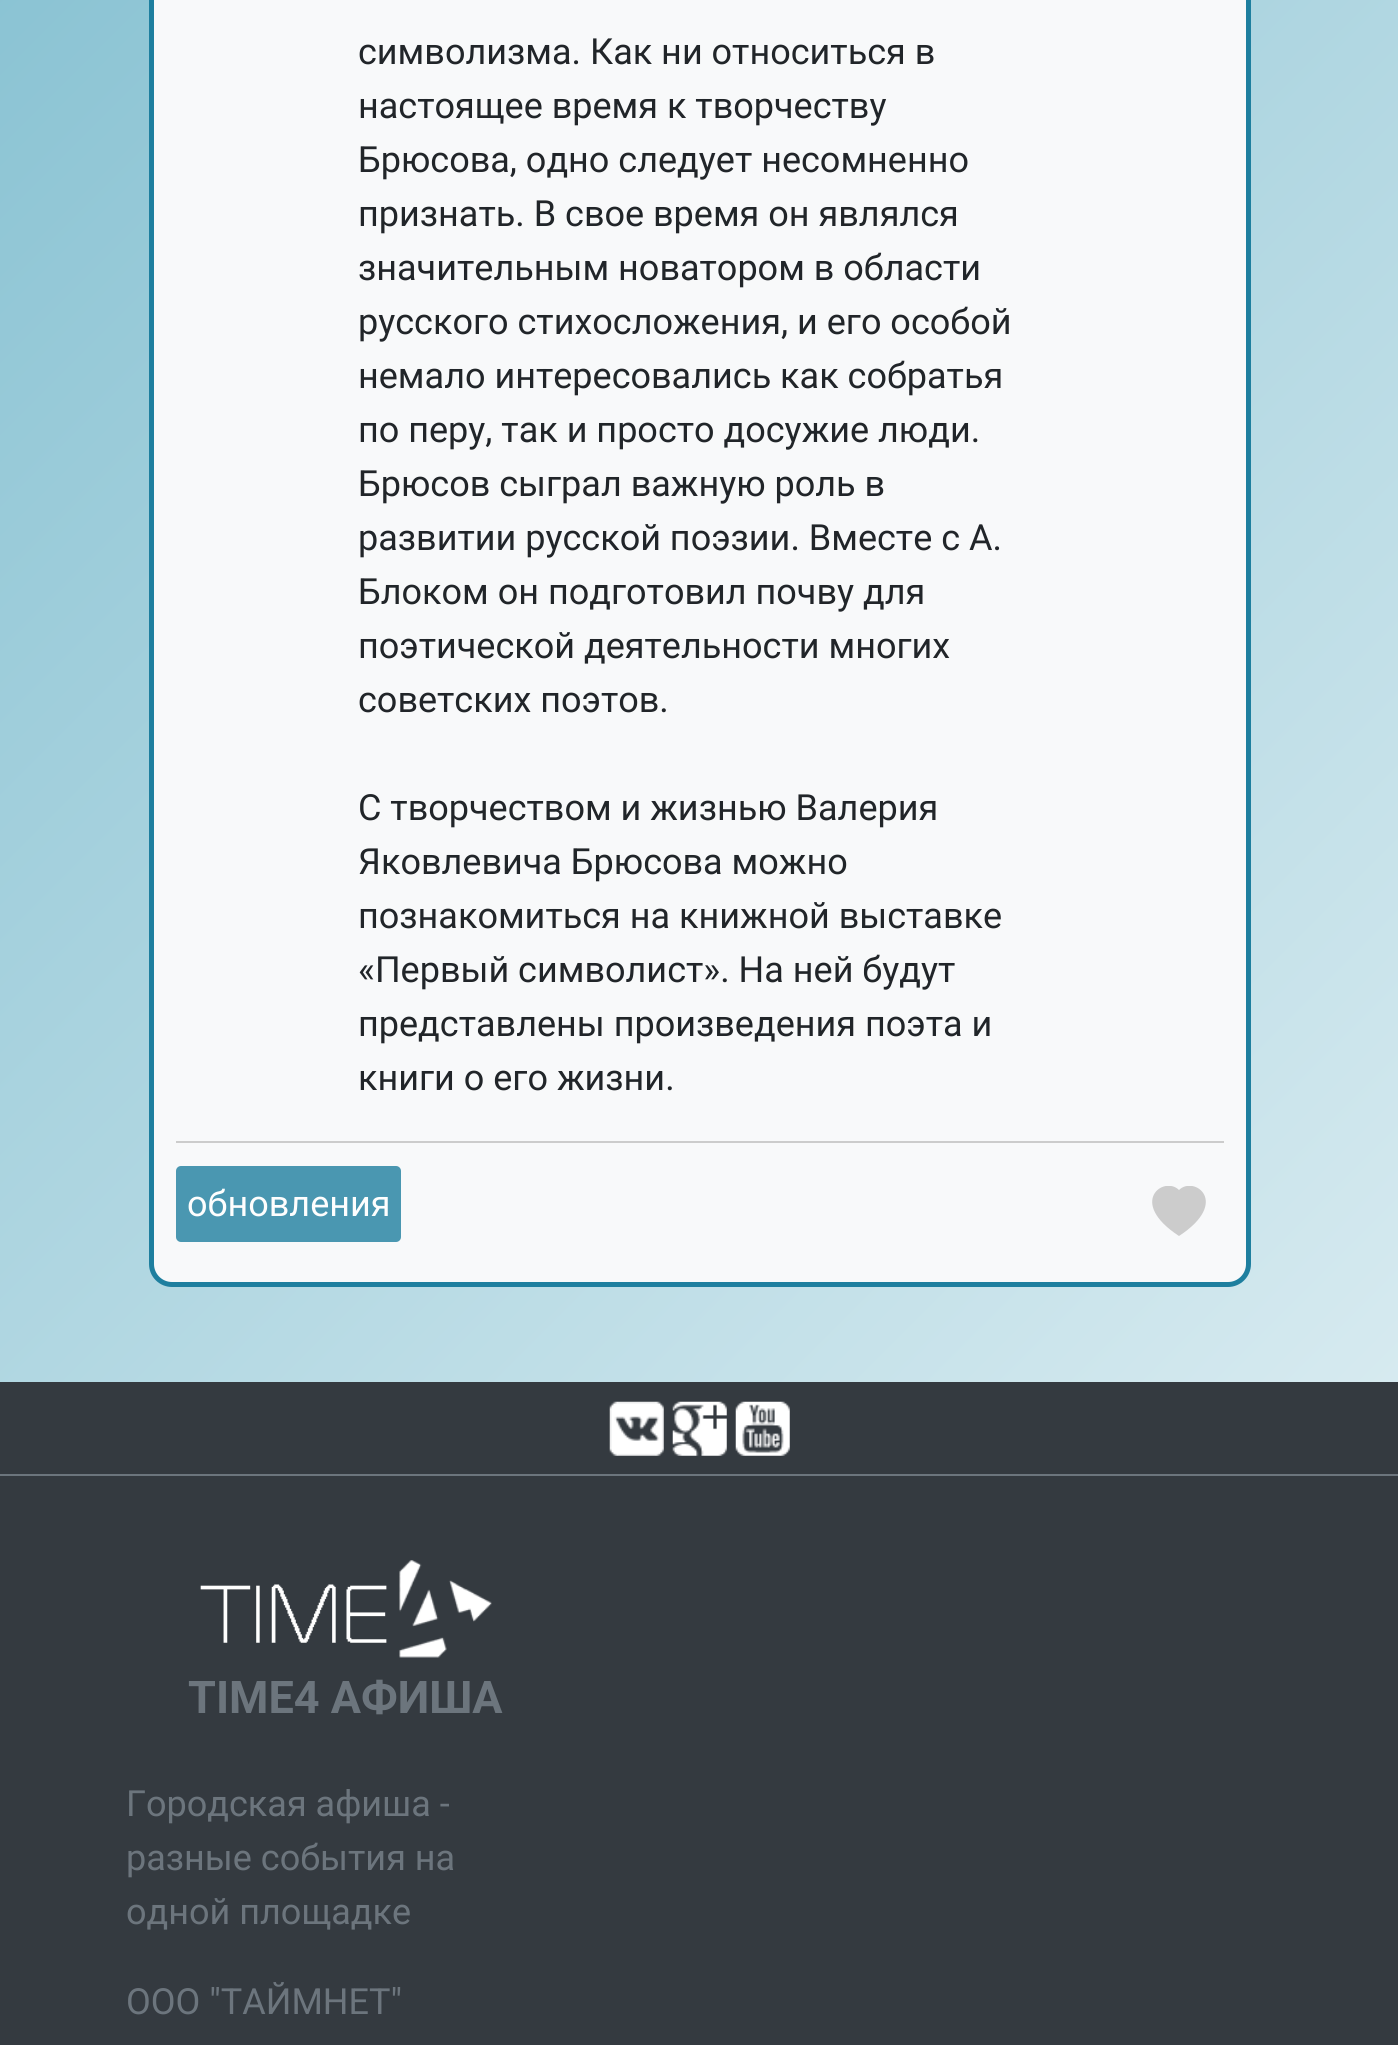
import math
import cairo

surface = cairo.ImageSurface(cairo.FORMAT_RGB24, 1398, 2045)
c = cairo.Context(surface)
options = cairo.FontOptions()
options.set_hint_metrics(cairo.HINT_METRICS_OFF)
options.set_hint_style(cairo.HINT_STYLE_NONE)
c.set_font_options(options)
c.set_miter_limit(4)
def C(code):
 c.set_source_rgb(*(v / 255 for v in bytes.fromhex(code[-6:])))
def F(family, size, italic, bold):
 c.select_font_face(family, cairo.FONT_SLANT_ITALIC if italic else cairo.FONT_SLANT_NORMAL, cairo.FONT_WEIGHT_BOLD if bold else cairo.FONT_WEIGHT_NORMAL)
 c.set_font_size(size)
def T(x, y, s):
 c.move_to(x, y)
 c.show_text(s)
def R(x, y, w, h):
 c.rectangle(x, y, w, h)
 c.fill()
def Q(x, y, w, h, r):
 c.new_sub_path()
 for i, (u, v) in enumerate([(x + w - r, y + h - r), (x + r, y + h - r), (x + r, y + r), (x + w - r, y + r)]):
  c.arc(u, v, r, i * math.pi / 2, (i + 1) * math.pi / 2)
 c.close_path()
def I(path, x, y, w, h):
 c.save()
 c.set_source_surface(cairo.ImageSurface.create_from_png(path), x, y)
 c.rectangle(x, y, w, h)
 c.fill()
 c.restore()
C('ffffff')
c.paint()
gradient = cairo.LinearGradient(-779,-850,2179,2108)
gradient.add_color_stop_rgba(.1,0.435,0.71,0.788,1)
gradient.add_color_stop_rgba(1,1,1,1,1)
c.set_source(gradient)
R(0,0,1398,1382)
C('f8f9fa')
Q(151.5,-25.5,1097,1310,20.5)
c.fill_preserve()
C('1e7f9f')
c.set_line_width(5)
c.stroke()
F('Roboto',36,0,0)
C('212529')
T(358,64,'символизма. Как ни относиться в')
T(358,118,'настоящее время к творчеству')
T(358,172,'Брюсова, одно следует несомненно')
T(358,226,'признать. В свое время он являлся')
T(358,280,'значительным новатором в области')
T(358,334,'русского стихосложения, и его особой')
T(358,388,'немало интересовались как собратья')
T(358,442,'по перу, так и просто досужие люди.')
T(358,496,'Брюсов сыграл важную роль в')
T(358,550,'развитии русской поэзии. Вместе с А.')
T(358,604,'Блоком он подготовил почву для')
T(358,658,'поэтической деятельности многих')
T(358,712,'советских поэтов.')
T(358,820,'С творчеством и жизнью Валерия')
T(358,874,'Яковлевича Брюсова можно')
T(358,928,'познакомиться на книжной выставке')
T(358,982,'«Первый символист». На ней будут')
T(358,1036,'представлены произведения поэта и')
T(358,1090,'книги о его жизни.')
C('cccccc')
R(176,1141,1048,2)
C('4a97b1')
Q(176,1166,225,76,5)
c.fill()
C('fefefe')
T(187,1216,'обновления')
c.save()
c.rectangle(1152,1186,54,54)
c.clip()
C('cccccc')
c.set_fill_rule(cairo.FILL_RULE_EVEN_ODD)
c.new_path()
c.move_to(1179,1190)
c.curve_to(1194,1175,1231,1202,1179,1236)
c.curve_to(1127,1202,1164,1175,1179,1190)
c.fill()
c.restore()
C('343a40')
R(0,1382,1398,663)
C('6c757d')
R(0,1474,1398,2)
I('1.png',609,1401,55,55)
I('2.png',672,1401,55,55)
I('3.png',735,1401,55,55)
I('4.png',200,1560,292,98)
F('Roboto',45,0,1)
T(188,1713,'TIME4 АФИША')
F('Roboto',36,0,0)
T(126,1816,'Городская афиша -')
T(126,1870,'разные события на')
T(126,1924,'одной площадке')
T(126,2014,'ООО "ТАЙМНЕТ"')
surface.write_to_png('o.png')
